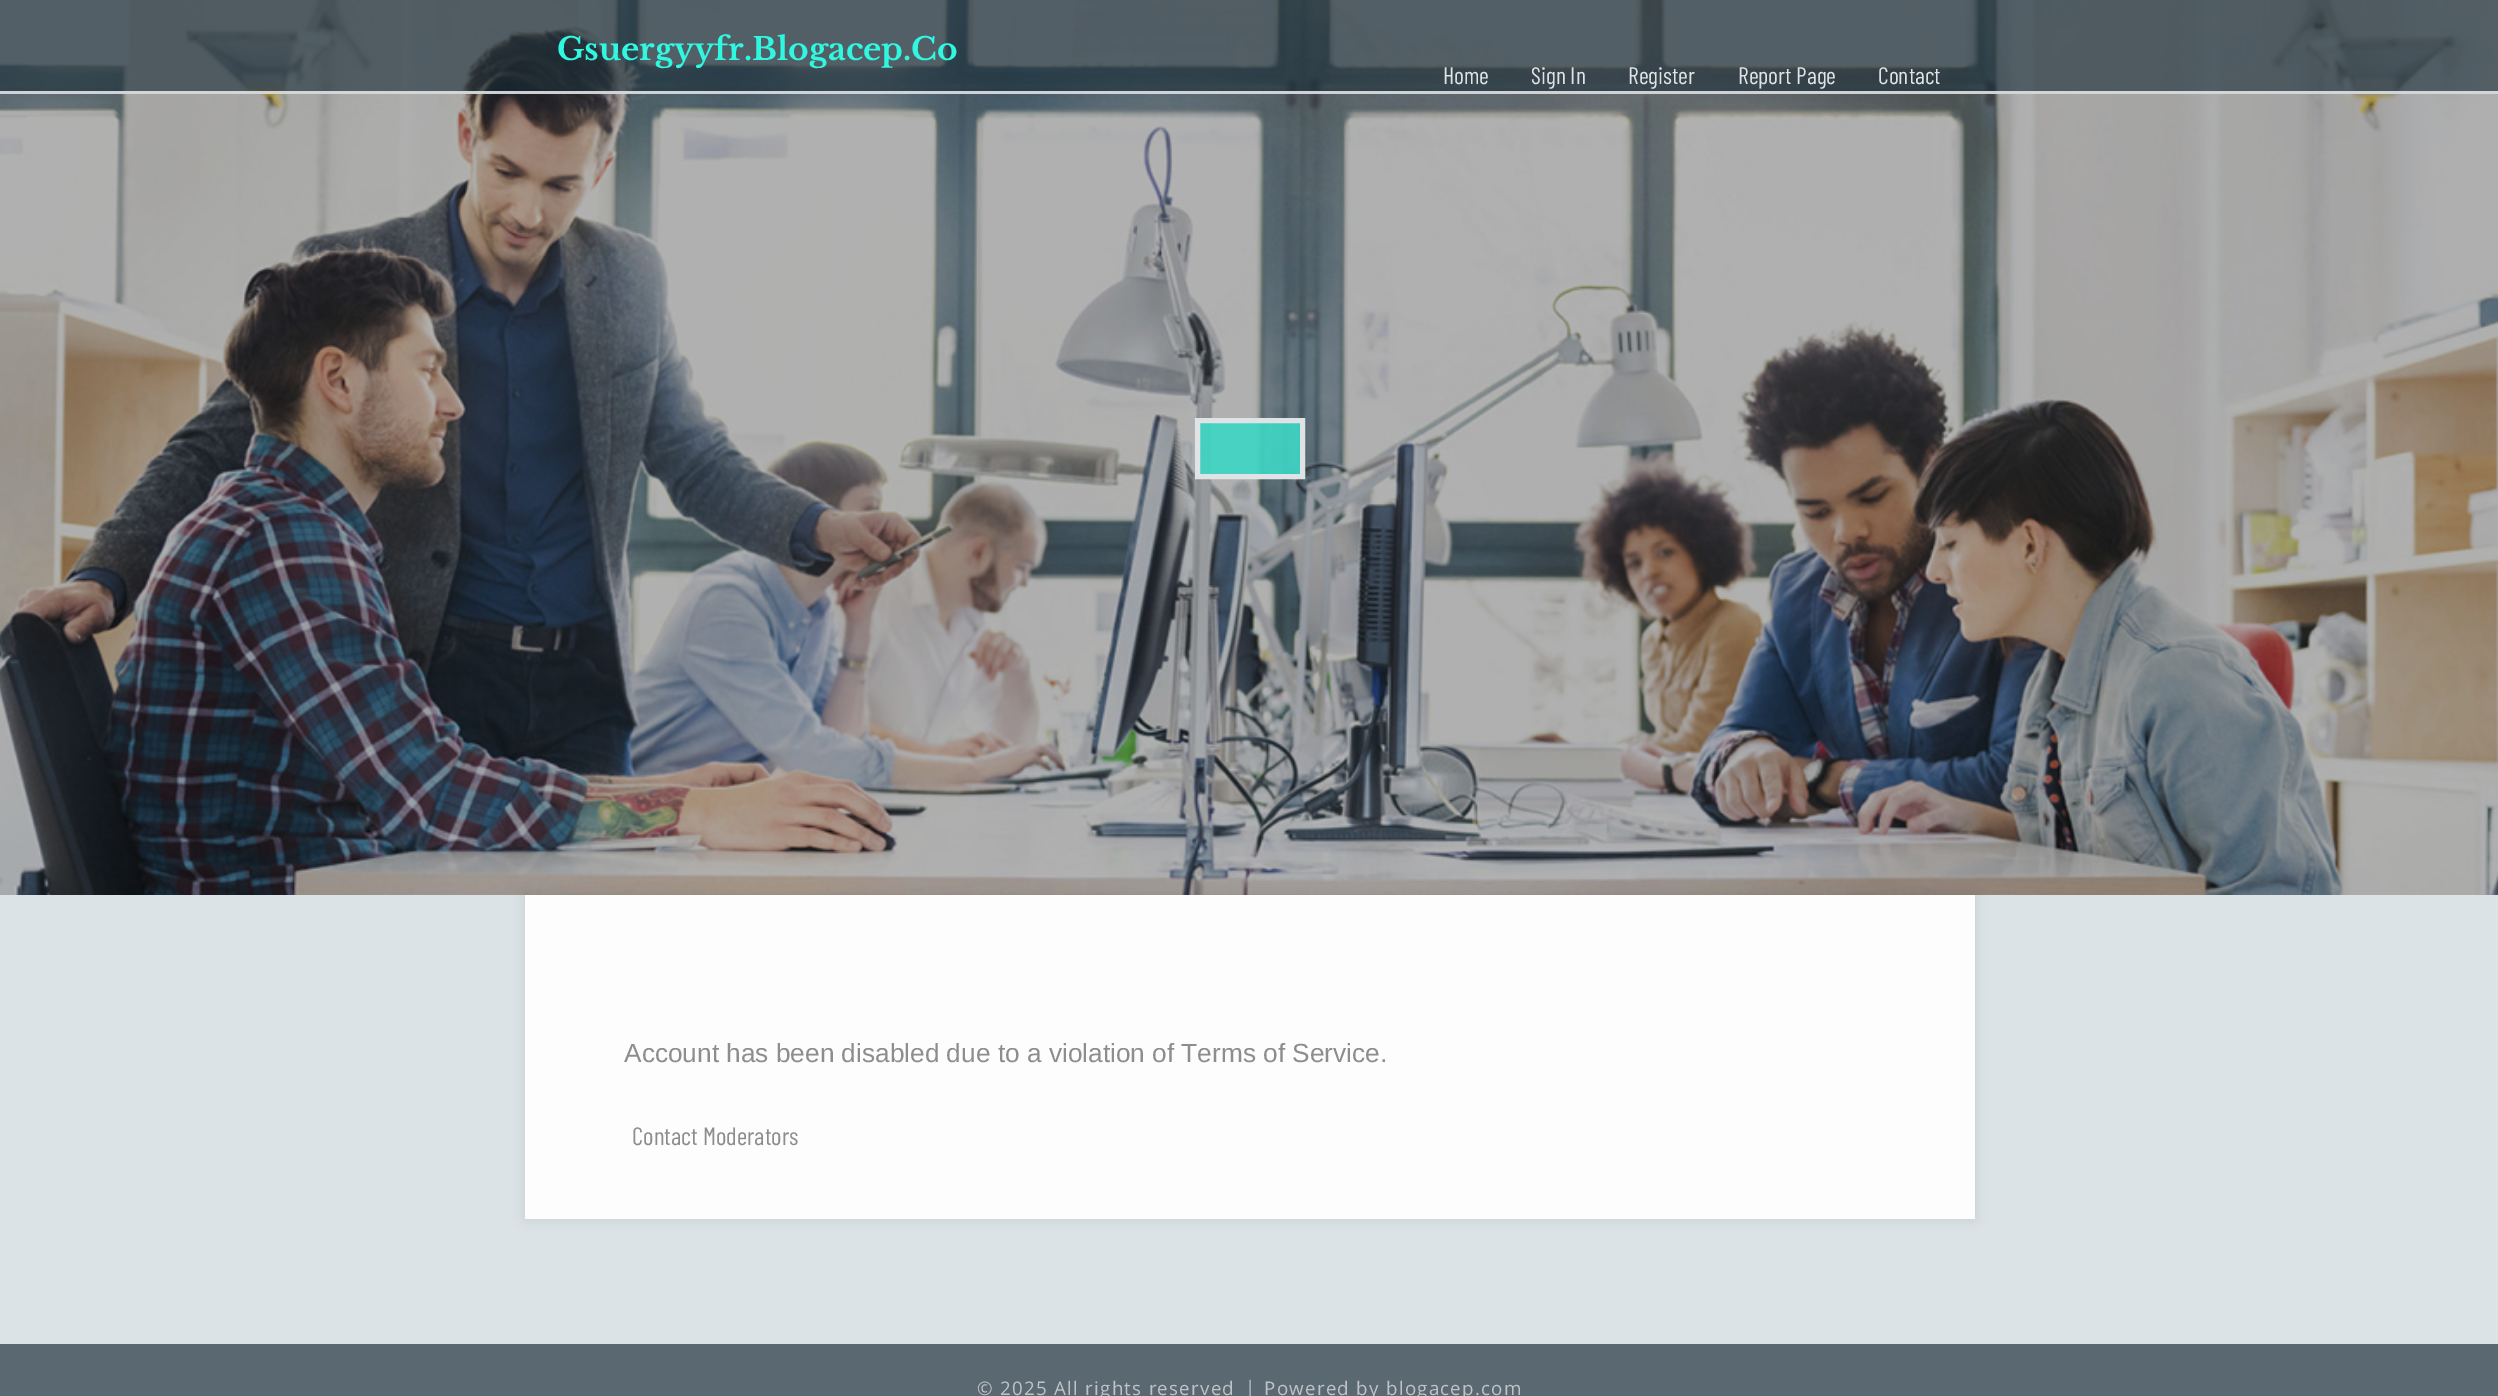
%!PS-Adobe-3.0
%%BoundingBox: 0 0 2498 1396
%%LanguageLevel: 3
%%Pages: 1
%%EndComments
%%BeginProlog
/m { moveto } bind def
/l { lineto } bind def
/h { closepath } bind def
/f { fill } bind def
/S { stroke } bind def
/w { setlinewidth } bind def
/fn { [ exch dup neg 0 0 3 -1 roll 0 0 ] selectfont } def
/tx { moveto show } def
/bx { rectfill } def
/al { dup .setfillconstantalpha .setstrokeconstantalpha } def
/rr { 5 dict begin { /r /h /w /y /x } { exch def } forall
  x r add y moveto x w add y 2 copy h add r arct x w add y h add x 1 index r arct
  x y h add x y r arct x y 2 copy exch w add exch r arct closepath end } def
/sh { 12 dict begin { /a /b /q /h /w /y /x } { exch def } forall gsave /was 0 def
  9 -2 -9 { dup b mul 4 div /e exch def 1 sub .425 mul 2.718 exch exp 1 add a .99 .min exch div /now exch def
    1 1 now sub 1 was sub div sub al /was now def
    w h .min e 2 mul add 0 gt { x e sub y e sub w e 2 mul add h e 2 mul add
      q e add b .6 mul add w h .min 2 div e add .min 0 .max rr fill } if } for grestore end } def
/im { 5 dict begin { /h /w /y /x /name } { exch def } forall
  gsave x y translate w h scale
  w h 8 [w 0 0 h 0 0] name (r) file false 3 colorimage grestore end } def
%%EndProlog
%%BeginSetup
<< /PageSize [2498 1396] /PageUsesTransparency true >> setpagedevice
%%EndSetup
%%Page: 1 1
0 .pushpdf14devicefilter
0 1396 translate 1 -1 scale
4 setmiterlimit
0.863 0.89 0.906 setrgbcolor
0 0 2498 1396 bx
(image0.raw) 0 0 2498 895 im
0.6 al
0.082 0.161 0.204 setrgbcolor
0 0 2498 94 bx
0.9 al
0.875 0.89 0.902 setrgbcolor
0 91 2498 3 bx
/LibreBaskerville-Bold 31.25 fn
1 al
0.184 0.969 0.878 setrgbcolor
(Gsuergyyfr.Blogacep.Co) 557 60 tx
/BarlowCondensed-Regular 23.75 fn
0.875 0.89 0.902 setrgbcolor
(Home) 1443 84 tx
(Sign In) 1531 84 tx
(Register) 1628 84 tx
(Report Page) 1738 84 tx
(Contact) 1878 84 tx
0.9 al
0.239 0.839 0.769 setrgbcolor
1197.5 420.5 m 1302.5 420.5 l 1302.5 476.5 l 1197.5 476.5 l h f
1 al
0.875 0.89 0.902 setrgbcolor
5 w
1197.5 420.5 m 1302.5 420.5 l 1302.5 476.5 l 1197.5 476.5 l h S
0 setgray
525 895 1450 324 0 6 0.1 sh
0.992 setgray
525 895 1450 324 bx
/LiberationSans-Regular 26.25 fn
0.553 setgray
(Account has been disabled due to a violation of Terms of Service.) 624 1062 tx
/BarlowCondensed-Regular 25 fn
(Contact Moderators) 632 1145 tx
0.353 0.408 0.447 setrgbcolor
0 1344 2498 52 bx
/OpenSans-Regular 18.75 fn
0.741 0.765 0.78 setrgbcolor
977 1395 m 1.25 0 (© 2025 All rights reserved) ashow
1245 1394 m 1.25 0 (|) ashow
1264 1395 m 1.25 0 (Powered by blogacep.com) ashow
.poppdf14devicefilter showpage
%%EOF
